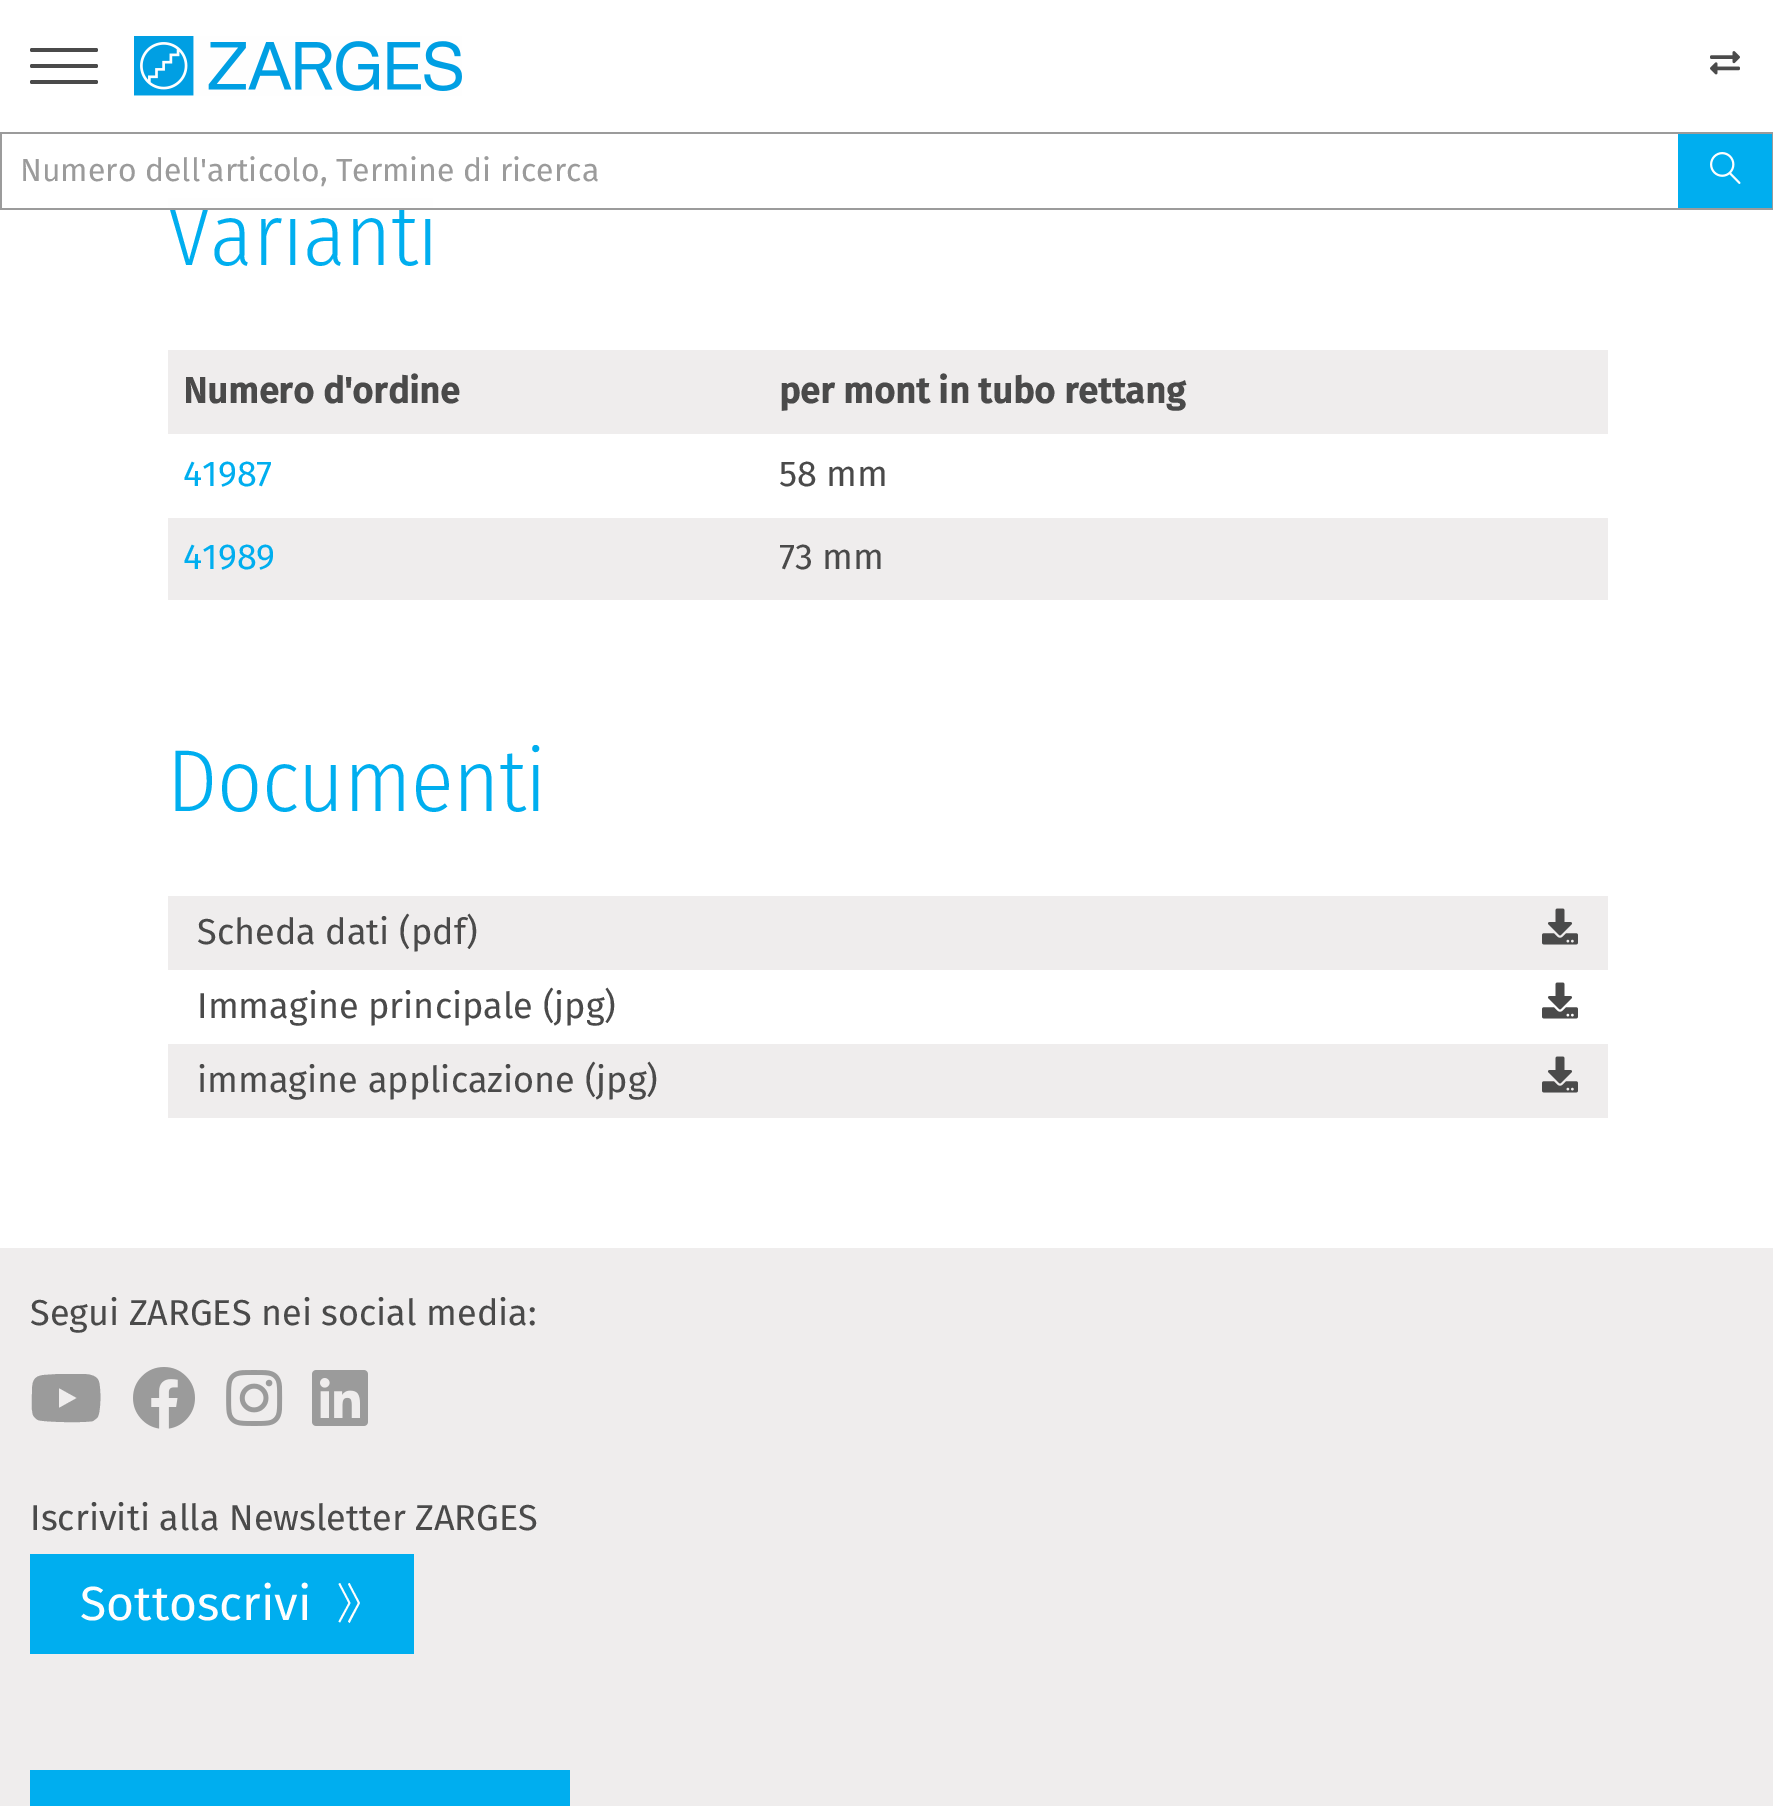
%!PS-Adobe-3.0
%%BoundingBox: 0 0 1773 1806
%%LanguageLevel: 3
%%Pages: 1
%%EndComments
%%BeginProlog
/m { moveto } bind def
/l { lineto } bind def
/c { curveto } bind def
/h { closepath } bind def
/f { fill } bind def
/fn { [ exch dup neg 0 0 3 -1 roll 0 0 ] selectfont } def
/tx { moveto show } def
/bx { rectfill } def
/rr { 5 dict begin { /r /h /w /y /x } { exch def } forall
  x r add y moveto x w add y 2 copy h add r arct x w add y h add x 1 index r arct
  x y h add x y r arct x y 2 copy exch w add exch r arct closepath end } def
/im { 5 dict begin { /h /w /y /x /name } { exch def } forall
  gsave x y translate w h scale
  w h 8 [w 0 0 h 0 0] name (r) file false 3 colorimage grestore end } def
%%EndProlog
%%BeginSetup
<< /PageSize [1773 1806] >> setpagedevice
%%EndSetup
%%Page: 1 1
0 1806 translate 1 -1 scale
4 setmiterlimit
1 setgray
0 0 1773 1806 bx
/FiraSansCondensed-Light 88 fn
0 0.682 0.937 setrgbcolor
167 265 m -0.5 0 (Varianti) ashow
0.996 setgray
168 198 265 10 bx
0.29 setgray
30 48 68 4 2 rr f
30 64 68 4 2 rr f
30 80 68 4 2 rr f
(image0.raw) 134 36 328 60 im
(image1.raw) 1710 51 30 24 im
0.608 setgray
0 132 1773 2 bx
0 208 1678 2 bx
0 132 2 78 bx
/FiraSans-Regular 32 fn
(Numero dell'articolo, Termine di ricerca) 20 181 tx
1772 132 1 78 bx
1678 208 95 2 bx
0 0.682 0.937 setrgbcolor
1678 134 94 74 bx
(image2.raw) 1710 152 31 32 im
0.937 0.929 0.929 setrgbcolor
168 350 1440 84 bx
/FiraSans-Bold 36 fn
0.29 setgray
(Numero d'ordine) 183 403 tx
(per mont in tubo rettang) 779 403 tx
/FiraSans-Regular 36 fn
0 0.682 0.937 setrgbcolor
(41987) 183 486 tx
0.29 setgray
(58 mm) 779 486 tx
0.937 0.929 0.929 setrgbcolor
168 518 1440 82 bx
0 0.682 0.937 setrgbcolor
(41989) 183 569 tx
0.29 setgray
(73 mm) 779 569 tx
/FiraSansCondensed-Light 88 fn
0 0.682 0.937 setrgbcolor
167 811 m -0.5 0 (Documenti) ashow
0.937 0.929 0.929 setrgbcolor
168 896 1440 74 bx
/FiraSans-Regular 36 fn
0.29 setgray
(Scheda dati \(pdf\)) 197 944 tx
(image3.raw) 1542 908 36 37 im
(Immagine principale \(jpg\)) 197 1018 tx
(image4.raw) 1542 982 36 37 im
0.937 0.929 0.929 setrgbcolor
168 1044 1440 74 bx
0.29 setgray
(immagine applicazione \(jpg\)) 197 1092 tx
(image3.raw) 1542 1056 36 37 im
0.937 0.929 0.929 setrgbcolor
0 1248 1773 558 bx
0.29 setgray
(Segui ZARGES nei social media:) 30 1325 tx
0.608 setgray
99 1382 m 101 1389 101 1414 97 1418 c 93 1421 l 84 1423 43 1422 38 1420 c 36 1419 34 1417 33 1415 c 31 1408 32 1400 32 1393 c 32 1382 33 1376 44 1375 c 59 1374 l 80 1374 l 86 1374 97 1374 99 1382 c h 59 1408 m 77 1398 l 59 1388 l h f
(image5.raw) 133 1367 62 62 im
(image6.raw) 226 1370 57 56 im
(image7.raw) 312 1370 56 56 im
0.29 setgray
(Iscriviti alla Newsletter ZARGES) 30 1530 tx
0 0.682 0.937 setrgbcolor
30 1554 384 100 bx
/FiraSans-Regular 48 fn
0.996 setgray
(Sottoscrivi) 80 1620 tx
349.5 1583 m 348 1584 l 358 1603 l 348 1621.5 l 349.5 1623 l 360 1603 l h 340 1583 m 338.5 1584 l 348.5 1603 l 338.5 1621.5 l 340 1622.5 l 350.5 1603 l h f
0 0.682 0.937 setrgbcolor
30 1770 540 36 bx
showpage
%%EOF
